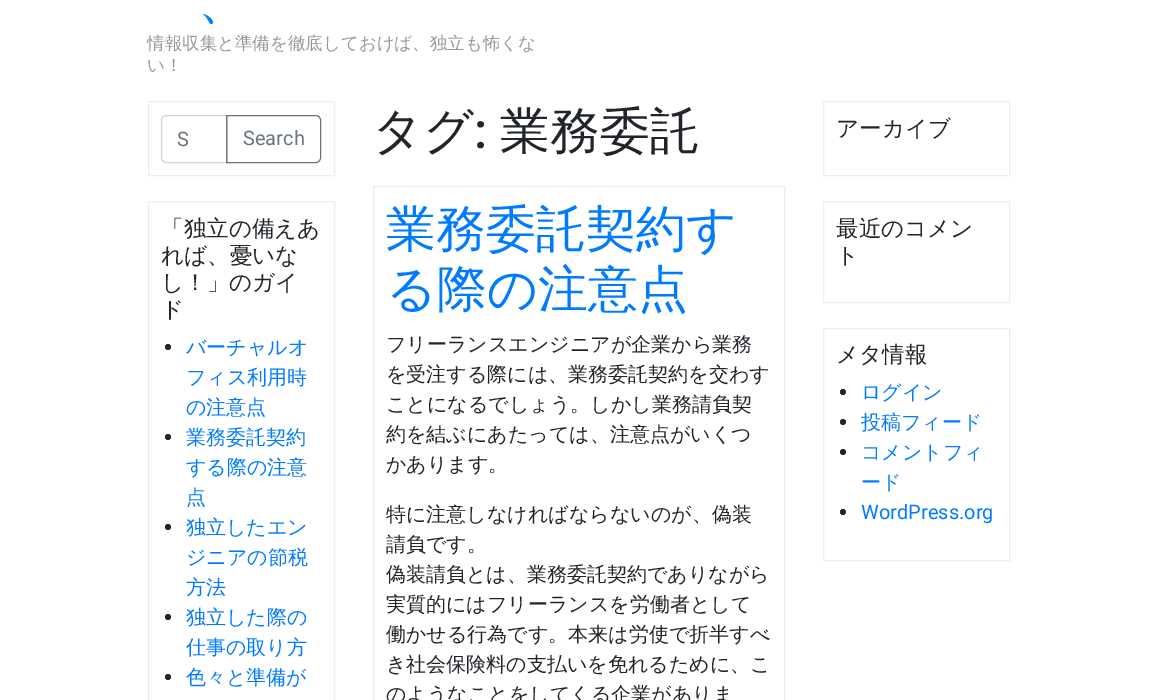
%!PS-Adobe-3.0
%%BoundingBox: 0 0 1156 700
%%LanguageLevel: 3
%%Pages: 1
%%EndComments
%%BeginProlog
/m { moveto } bind def
/l { lineto } bind def
/c { curveto } bind def
/h { closepath } bind def
/f { fill } bind def
/S { stroke } bind def
/fn { [ exch dup neg 0 0 3 -1 roll 0 0 ] selectfont } def
/tx { moveto show } def
/bx { rectfill } def
/ci { newpath 0 360 arc closepath } def
%%EndProlog
%%BeginSetup
<< /PageSize [1156 700] >> setpagedevice
%%EndSetup
%%Page: 1 1
0 700 translate 1 -1 scale
4 setmiterlimit
1 setgray
0 0 1156 700 bx
/WenQuanYiZenHei-Medium 50 fn
0 0.482 1 setrgbcolor
(、) 198 18 tx
/WenQuanYiZenHei-Medium 17.5 fn
0.6 setgray
(情報収集と準備を徹底しておけば、独立も怖くな) 147 49 tx
(い！) 147 71 tx
0.933 setgray
148.5 101.5 186 74 rectstroke
0.808 0.831 0.855 setrgbcolor
166 115.5 m 227.5 115.5 l 227.5 162.5 l 166 162.5 l 163.5 162.5 161.5 160.5 161.5 158 c 161.5 120 l 161.5 117.5 163.5 115.5 166 115.5 c h S
/Roboto-Regular 20 fn
0.424 0.459 0.49 setrgbcolor
(S) 177 146 tx
226.5 115.5 m 316 115.5 l 318.5 115.5 320.5 117.5 320.5 120 c 320.5 158 l 320.5 160.5 318.5 162.5 316 162.5 c 226.5 162.5 l h S
(Search) 243 145 tx
0.933 setgray
148.5 201.5 186 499 rectstroke
/WenQuanYiZenHei-Medium 22.5 fn
0.129 0.145 0.161 setrgbcolor
(「独立の備えあ) 161 236 tx
(れば、憂いな) 161 263 tx
(し！」のガイ) 161 290 tx
(ド) 161 317 tx
168 347 3 ci f
/WenQuanYiZenHei-Medium 20 fn
0 0.482 1 setrgbcolor
(バーチャルオ) 186 354 tx
(フィス利用時) 186 384 tx
(の注意点) 186 414 tx
0.129 0.145 0.161 setrgbcolor
168 437 3 ci f
0 0.482 1 setrgbcolor
(業務委託契約) 186 444 tx
(する際の注意) 186 474 tx
(点) 186 504 tx
0.129 0.145 0.161 setrgbcolor
168 527 3 ci f
0 0.482 1 setrgbcolor
(独立したエン) 186 534 tx
(ジニアの節税) 186 564 tx
(方法) 186 594 tx
0.129 0.145 0.161 setrgbcolor
168 617 3 ci f
0 0.482 1 setrgbcolor
(独立した際の) 186 624 tx
(仕事の取り方) 186 654 tx
0.129 0.145 0.161 setrgbcolor
168 677 3 ci f
0 0.482 1 setrgbcolor
(色々と準備が) 186 684 tx
/WenQuanYiZenHei-Medium 50 fn
0.129 0.145 0.161 setrgbcolor
(タグ) 372 148 tx
/Roboto-Medium 50 fn
(:) 474 148 tx
/WenQuanYiZenHei-Medium 50 fn
(業務委託) 500 148 tx
0.933 setgray
373.5 186.5 411 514 rectstroke
0 0.482 1 setrgbcolor
(業務委託契約す) 386 246 tx
(る際の注意点) 386 306 tx
/WenQuanYiZenHei-Medium 20 fn
0.129 0.145 0.161 setrgbcolor
(フリーランスエンジニアが企業から業務) 386 351 tx
(を受注する際には、業務委託契約を交わす) 386 381 tx
(ことになるでしょう。しかし業務請負契) 386 411 tx
(約を結ぶにあたっては、注意点がいくつ) 386 441 tx
(かあります。) 386 471 tx
(特に注意しなければならないのが、偽装) 386 521 tx
(請負です。) 386 551 tx
(偽装請負とは、業務委託契約でありながら) 386 581 tx
(実質的にはフリーランスを労働者として) 386 611 tx
(働かせる行為です。本来は労使で折半すべ) 386 641 tx
(き社会保険料の支払いを免れるために、こ) 386 671 tx
(のようなことをしてくる企業がありま) 386 701 tx
0.933 setgray
823.5 101.5 186 74 rectstroke
/WenQuanYiZenHei-Medium 22.5 fn
0.129 0.145 0.161 setrgbcolor
(アーカイブ) 836 136 tx
0.933 setgray
823.5 201.5 186 101 rectstroke
0.129 0.145 0.161 setrgbcolor
(最近のコメン) 836 236 tx
(ト) 836 263 tx
0.933 setgray
823.5 328.5 186 232 rectstroke
0.129 0.145 0.161 setrgbcolor
(メタ情報) 836 362 tx
843 392 3 ci f
/WenQuanYiZenHei-Medium 20 fn
0 0.482 1 setrgbcolor
(ログイン) 861 399 tx
0.129 0.145 0.161 setrgbcolor
843 422 3 ci f
0 0.482 1 setrgbcolor
(投稿フィード) 861 429 tx
0.129 0.145 0.161 setrgbcolor
843 452 3 ci f
0 0.482 1 setrgbcolor
(コメントフィ) 861 459 tx
(ード) 861 489 tx
0.129 0.145 0.161 setrgbcolor
843 512 3 ci f
/Roboto-Regular 20 fn
0 0.482 1 setrgbcolor
(WordPress.org) 861 519 tx
showpage
%%EOF
